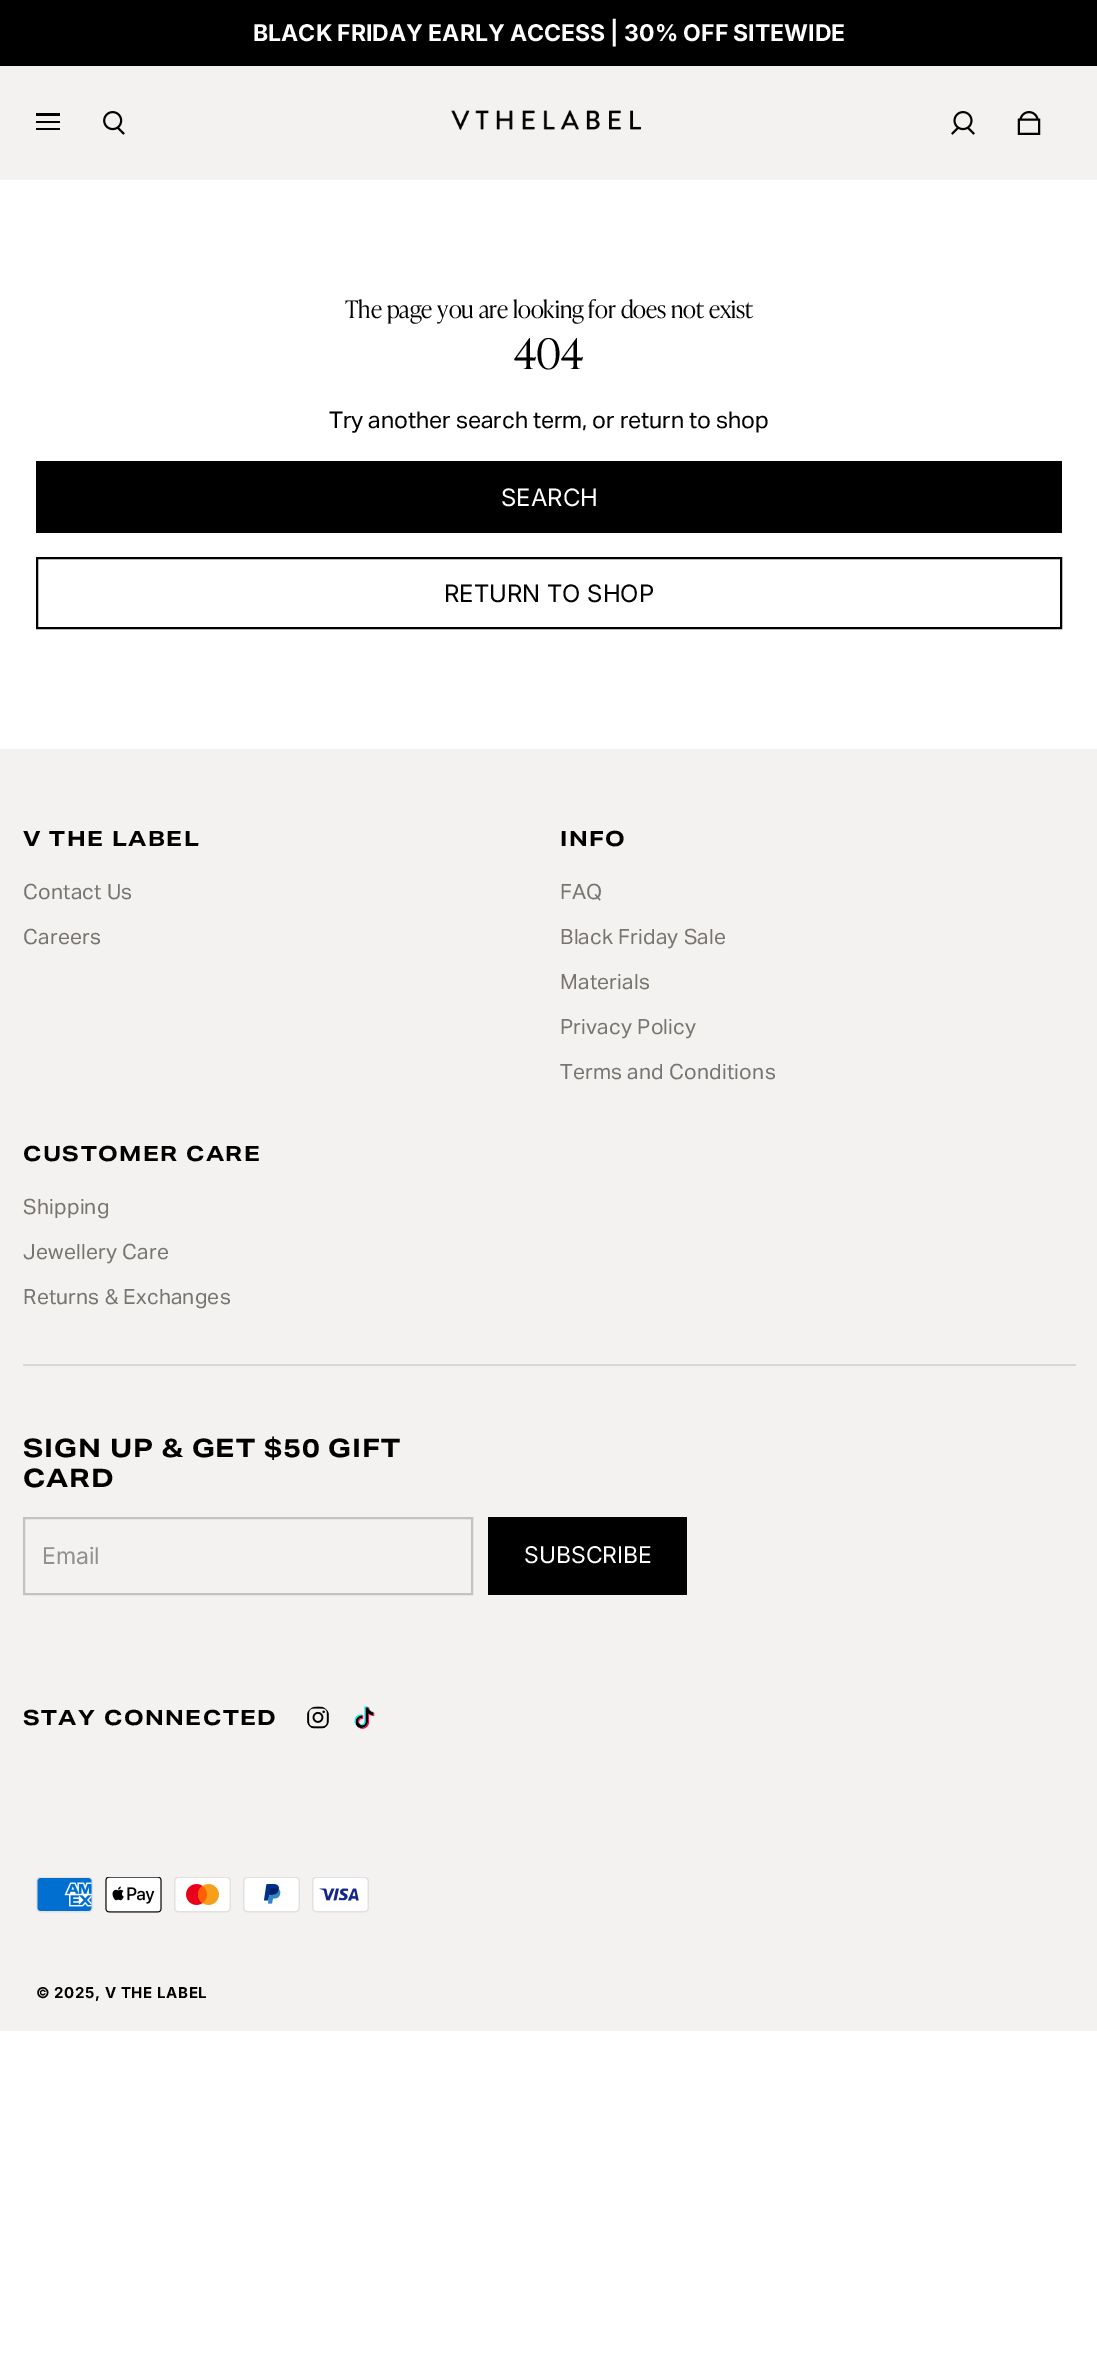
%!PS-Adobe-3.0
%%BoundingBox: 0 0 1097 2380
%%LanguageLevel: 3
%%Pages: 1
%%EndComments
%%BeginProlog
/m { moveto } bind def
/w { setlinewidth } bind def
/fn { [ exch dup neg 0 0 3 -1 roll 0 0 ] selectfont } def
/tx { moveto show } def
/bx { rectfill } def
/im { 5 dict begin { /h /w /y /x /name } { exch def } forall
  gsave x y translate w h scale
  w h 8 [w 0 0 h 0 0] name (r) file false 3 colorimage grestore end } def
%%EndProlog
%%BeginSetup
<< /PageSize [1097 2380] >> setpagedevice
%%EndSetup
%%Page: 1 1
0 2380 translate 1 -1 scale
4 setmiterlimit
1 setgray
0 0 1097 2380 bx
0 setgray
0 0 1097 66 bx
/Inter-Bold 23.05 fn
1 setgray
253 41 m -0.25 0 32 (BLACK FRIDAY EARLY ACCESS | 30% OFF SITEWIDE) widthshow
0.957 0.949 0.941 setrgbcolor
0 66 1097 114 bx
0 setgray
36 113 24 3 bx
36 121 24 2 bx
36 128 24 2 bx
(image0.raw) 103 111 22 24 im
(image1.raw) 451 110 191 20 im
(image2.raw) 951 111 24 24 im
(image3.raw) 1017 111 24 24 im
/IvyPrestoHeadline-Light 24 fn
(The page you are looking for does not exist) 345 318 tx
/IvyPrestoHeadline-Light 42 fn
(404) 514 369 tx
/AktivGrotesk-Regular 23.05 fn
(Try another search term, or return to shop) 329 428 tx
36 461 1026 72 bx
/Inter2-Regular 24 fn
1 setgray
(SEARCH) 501 506 tx
0 setgray
2 w
37 558 1024 70 rectstroke
(RETURN TO SHOP) 444 602 tx
0.957 0.949 0.941 setrgbcolor
0 749 1097 1282 bx
0.843 setgray
23 1364 1053 2 bx
/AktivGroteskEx-Bold 21 fn
0 setgray
23 846 m 1.5 0 (V THE LABEL) ashow
/AktivGrotesk-Regular 21 fn
0.471 0.459 0.439 setrgbcolor
23 899 m 0.25 0 (Contact Us) ashow
23 944 m 0.25 0 (Careers) ashow
/AktivGroteskEx-Bold 21 fn
0 setgray
560 846 m 1.5 0 (INFO) ashow
/AktivGrotesk-Regular 21 fn
0.471 0.459 0.439 setrgbcolor
560 899 m 0.25 0 (FAQ) ashow
560 944 m 0.25 0 (Black Friday Sale) ashow
560 989 m 0.25 0 (Materials) ashow
560 1034 m 0.25 0 (Privacy Policy) ashow
560 1079 m 0.25 0 (Terms and Conditions) ashow
/AktivGroteskEx-Bold 21 fn
0 setgray
23 1161 m 1.5 0 (CUSTOMER CARE) ashow
/AktivGrotesk-Regular 21 fn
0.471 0.459 0.439 setrgbcolor
23 1214 m 0.25 0 (Shipping) ashow
23 1259 m 0.25 0 (Jewellery Care) ashow
23 1304 m 0.25 0 (Returns & Exchanges) ashow
/AktivGroteskEx-Bold 25.5 fn
0 setgray
23 1457 m 1 0 (SIGN UP & GET $50 GIFT) ashow
23 1487 m 1 0 (CARD) ashow
0.765 0.761 0.753 setrgbcolor
24 1518 448 76 rectstroke
/Inter-Regular 23.05 fn
0.573 0.569 0.565 setrgbcolor
(Email) 42 1564 tx
0 setgray
488 1517 199 78 bx
1 setgray
(SUBSCRIBE) 524 1563 tx
/AktivGroteskEx-Bold 21 fn
0 setgray
23 1725 m 1.5 0 (STAY CONNECTED) ashow
(image4.raw) 307 1706 22 23 im
(image5.raw) 354 1706 21 23 im
(image6.raw) 36 1877 57 36 im
(image7.raw) 105 1877 57 36 im
(image8.raw) 174 1877 57 36 im
(image9.raw) 243 1877 57 36 im
(image10.raw) 312 1877 57 36 im
/Inter-Bold 15 fn
36 1998 m 0.6 0 (© 2025, V THE LABEL) ashow
showpage
%%EOF
